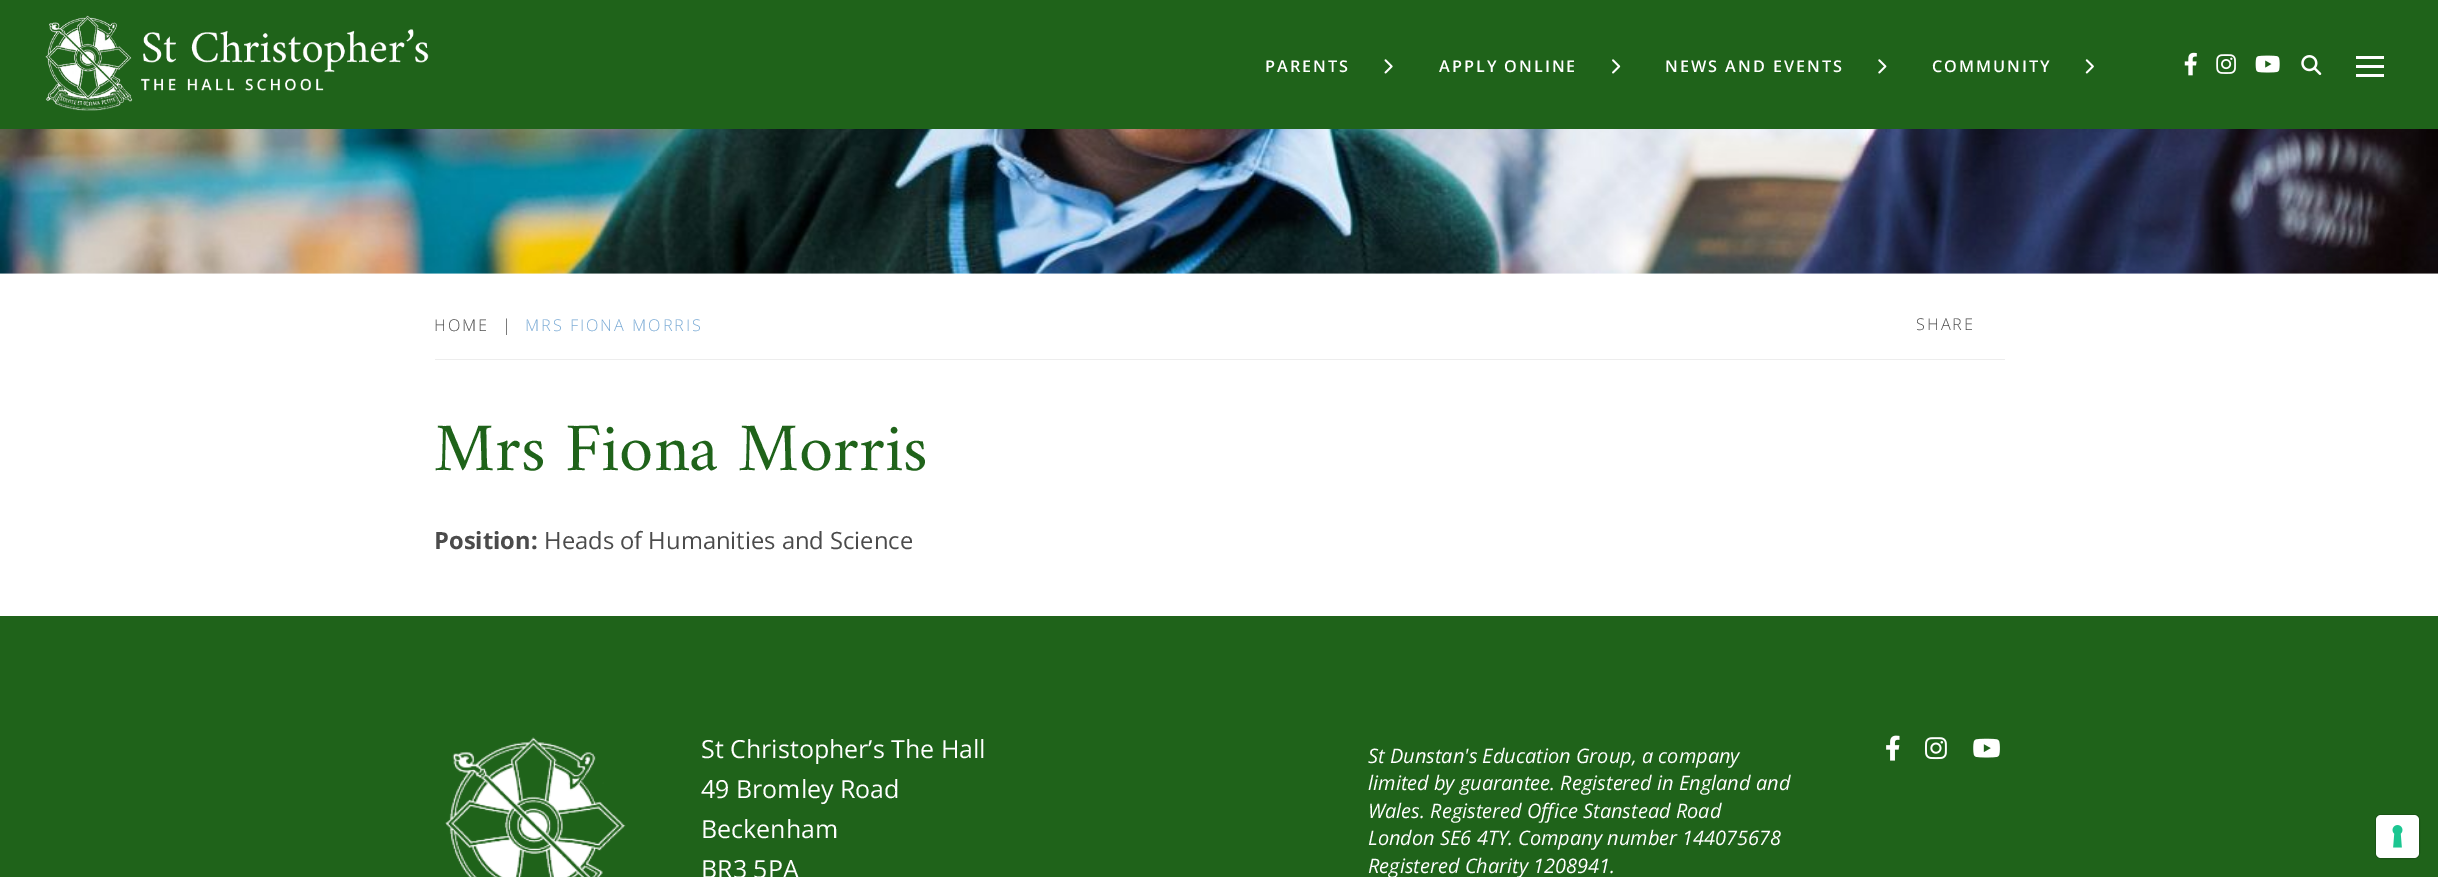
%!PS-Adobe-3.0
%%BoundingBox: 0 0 2438 877
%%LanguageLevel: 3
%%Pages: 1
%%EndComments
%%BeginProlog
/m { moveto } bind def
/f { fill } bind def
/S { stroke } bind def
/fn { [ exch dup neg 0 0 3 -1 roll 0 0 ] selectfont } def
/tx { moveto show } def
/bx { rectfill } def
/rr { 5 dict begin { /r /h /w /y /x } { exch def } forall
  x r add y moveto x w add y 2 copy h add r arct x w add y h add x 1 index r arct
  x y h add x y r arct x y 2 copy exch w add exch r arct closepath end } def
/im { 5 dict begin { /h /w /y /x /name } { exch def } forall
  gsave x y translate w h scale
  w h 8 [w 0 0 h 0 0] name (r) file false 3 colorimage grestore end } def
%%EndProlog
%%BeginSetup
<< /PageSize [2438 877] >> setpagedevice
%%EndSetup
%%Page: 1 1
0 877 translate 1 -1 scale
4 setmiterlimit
1 setgray
0 0 2438 877 bx
0.122 0.388 0.102 setrgbcolor
0 0 2438 129 bx
(image0.raw) 45 15 384 96 im
/OpenSans-SemiBold 16.25 fn
1 setgray
1265 72 m 2 0 (PARENTS) ashow
(image1.raw) 1384 59 9 15 im
1439 72 m 2 0 (APPLY ONLINE) ashow
(image2.raw) 1612 59 9 15 im
1665 72 m 2 0 (NEWS AND EVENTS) ashow
(image3.raw) 1878 59 9 15 im
1932 72 m 2 0 (COMMUNITY) ashow
(image4.raw) 2085 59 9 15 im
(image5.raw) 2184 52 13 24 im
(image6.raw) 2216 54 20 20 im
(image7.raw) 2255 55 25 18 im
(image8.raw) 2301 55 21 20 im
2356 56 28 3 bx
2356 65 28 3 bx
2356 74 28 3 bx
(image9.raw) 0 129 2438 145 im
0.929 setgray
435 359 1570 1 bx
/OpenSans-Light 16.25 fn
0.294 setgray
434 331 m 2 0 (HOME) ashow
502 331 m 2 0 (|) ashow
0.475 0.667 0.835 setrgbcolor
525 331 m 2 0 (MRS FIONA MORRIS) ashow
0.294 setgray
1916 330 m 2 0 (SHARE) ashow
/Amiri-Regular 68.75 fn
0.122 0.388 0.102 setrgbcolor
(Mrs Fiona Morris) 434 470 tx
/OpenSans-Bold 23.75 fn
0.294 setgray
(Position:) 434 549 tx
/OpenSans-Regular 23.75 fn
(Heads of Humanities and Science) 544 549 tx
0.122 0.388 0.102 setrgbcolor
0 616 2438 261 bx
(image10.raw) 445 737 181 140 im
/OpenSans-Regular 25 fn
1 setgray
(St Christopher’s The Hall) 701 758 tx
(49 Bromley Road) 701 798 tx
(Beckenham) 701 838 tx
(BR3 5PA) 701 878 tx
/OpenSans-Italic 20 fn
(St Dunstan's Education Group, a company) 1368 763 tx
(limited by guarantee. Registered in England and) 1368 790 tx
(Wales. Registered Office Stanstead Road) 1368 818 tx
(London SE6 4TY. Company number 144075678) 1368 845 tx
(Registered Charity 1208941.) 1368 873 tx
(image11.raw) 1886 735 14 26 im
(image12.raw) 1925 737 22 23 im
(image13.raw) 1973 738 27 20 im
0.102 0.329 0.086 setrgbcolor
2375.5 814.5 44 44 5.5 rr S
1 setgray
2376 815 43 43 5 rr f
(image14.raw) 2392 825 11 23 im
showpage
%%EOF
